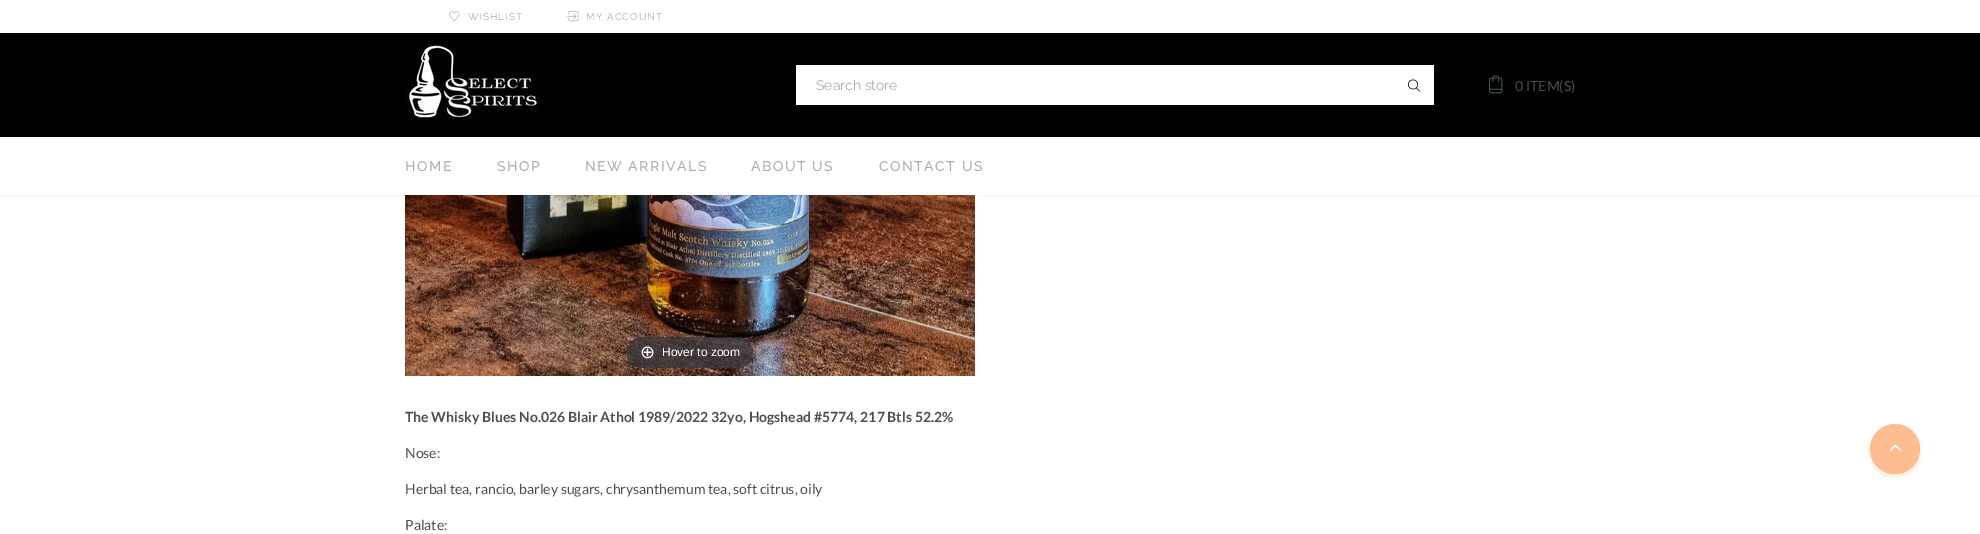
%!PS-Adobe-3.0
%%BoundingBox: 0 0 1980 534
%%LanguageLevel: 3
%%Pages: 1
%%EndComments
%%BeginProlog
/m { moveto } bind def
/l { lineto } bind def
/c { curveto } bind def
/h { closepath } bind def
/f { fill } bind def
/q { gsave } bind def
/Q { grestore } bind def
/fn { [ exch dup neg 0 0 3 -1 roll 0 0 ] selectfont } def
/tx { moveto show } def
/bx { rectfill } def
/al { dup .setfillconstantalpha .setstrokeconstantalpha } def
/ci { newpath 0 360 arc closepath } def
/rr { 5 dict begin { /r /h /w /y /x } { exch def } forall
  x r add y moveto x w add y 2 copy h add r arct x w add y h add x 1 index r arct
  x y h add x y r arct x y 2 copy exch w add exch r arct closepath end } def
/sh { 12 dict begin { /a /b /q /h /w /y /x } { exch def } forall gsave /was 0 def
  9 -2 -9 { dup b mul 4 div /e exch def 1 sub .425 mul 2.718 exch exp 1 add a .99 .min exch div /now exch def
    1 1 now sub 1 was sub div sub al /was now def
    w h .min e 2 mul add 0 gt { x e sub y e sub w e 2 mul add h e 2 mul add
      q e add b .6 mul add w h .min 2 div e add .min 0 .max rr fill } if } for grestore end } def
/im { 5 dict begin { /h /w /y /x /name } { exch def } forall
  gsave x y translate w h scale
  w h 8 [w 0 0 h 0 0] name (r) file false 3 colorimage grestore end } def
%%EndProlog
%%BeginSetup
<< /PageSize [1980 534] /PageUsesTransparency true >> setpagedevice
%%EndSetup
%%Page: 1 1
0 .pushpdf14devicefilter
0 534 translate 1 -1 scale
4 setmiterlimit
1 setgray
0 0 1980 534 bx
(image5.raw) 405 195 570 181 im
0 setgray
0 0 1980 195 0 1.5 0.1 sh
1 setgray
0 0 1980 195 bx
(image0.raw) 449 11 11 11 im
/Raleway-Regular 10 fn
0.675 setgray
468 20 m 1 0 (WISHLIST) ashow
(image1.raw) 567 11 12 11 im
586 20 m 1 0 (MY ACCOUNT) ashow
0 setgray
0 33 1980 104 bx
(image2.raw) 406 45 134 76 im
1 setgray
796 65 638 40 bx
/Raleway-Regular 14 fn
0.675 setgray
(Search store) 816 90 tx
(image3.raw) 1408 79 12 13 im
(image4.raw) 1489 75 14 19 im
/Lato-Regular 14 fn
0.282 0.318 0.329 setrgbcolor
(0 ITEM\(S\)) 1515 91 tx
/Raleway-Medium 14 fn
0.675 setgray
405 171 m 1.5 0 (HOME) ashow
497 171 m 1.5 0 (SHOP) ashow
585 171 m 1.5 0 (NEW ARRIVALS) ashow
751 171 m 1.5 0 (ABOUT US) ashow
879 171 m 1.5 0 (CONTACT US) ashow
0.7 al
0.192 0.2 0.239 setrgbcolor
627 337 126 31 15.5 rr f
/DejaVuSans-Regular 18 fn
1 al
1 setgray
(⊕) 640 358 tx
/LiberationSans-Regular 12 fn
(Hover to zoom) 662 356 tx
/Lato-Bold 14 fn
0.282 0.318 0.329 setrgbcolor
(The Whisky Blues No.026 Blair Athol 1989/2022 32yo, Hogshead #5774, 217 Btls 52.2%) 405 422 tx
/Lato-Regular 14 fn
(Nose:) 405 458 tx
(Herbal tea, rancio, barley sugars, chrysanthemum tea, soft citrus, oily) 405 494 tx
(Palate:) 405 530 tx
q
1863 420 m 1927 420 l 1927 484 l 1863 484 l h 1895 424 m 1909 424 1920 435 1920 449 c 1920 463 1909 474 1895 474 c 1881 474 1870 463 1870 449 c 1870 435 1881 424 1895 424 c h eoclip newpath
0.992 0.569 0.282 setrgbcolor
1870 427 50 50 25 2 0.2 sh
Q
0.6 al
0.992 0.569 0.282 setrgbcolor
1895 449 25 ci f
1 al
(image6.raw) 1890 444 11 7 im
.poppdf14devicefilter showpage
%%EOF
